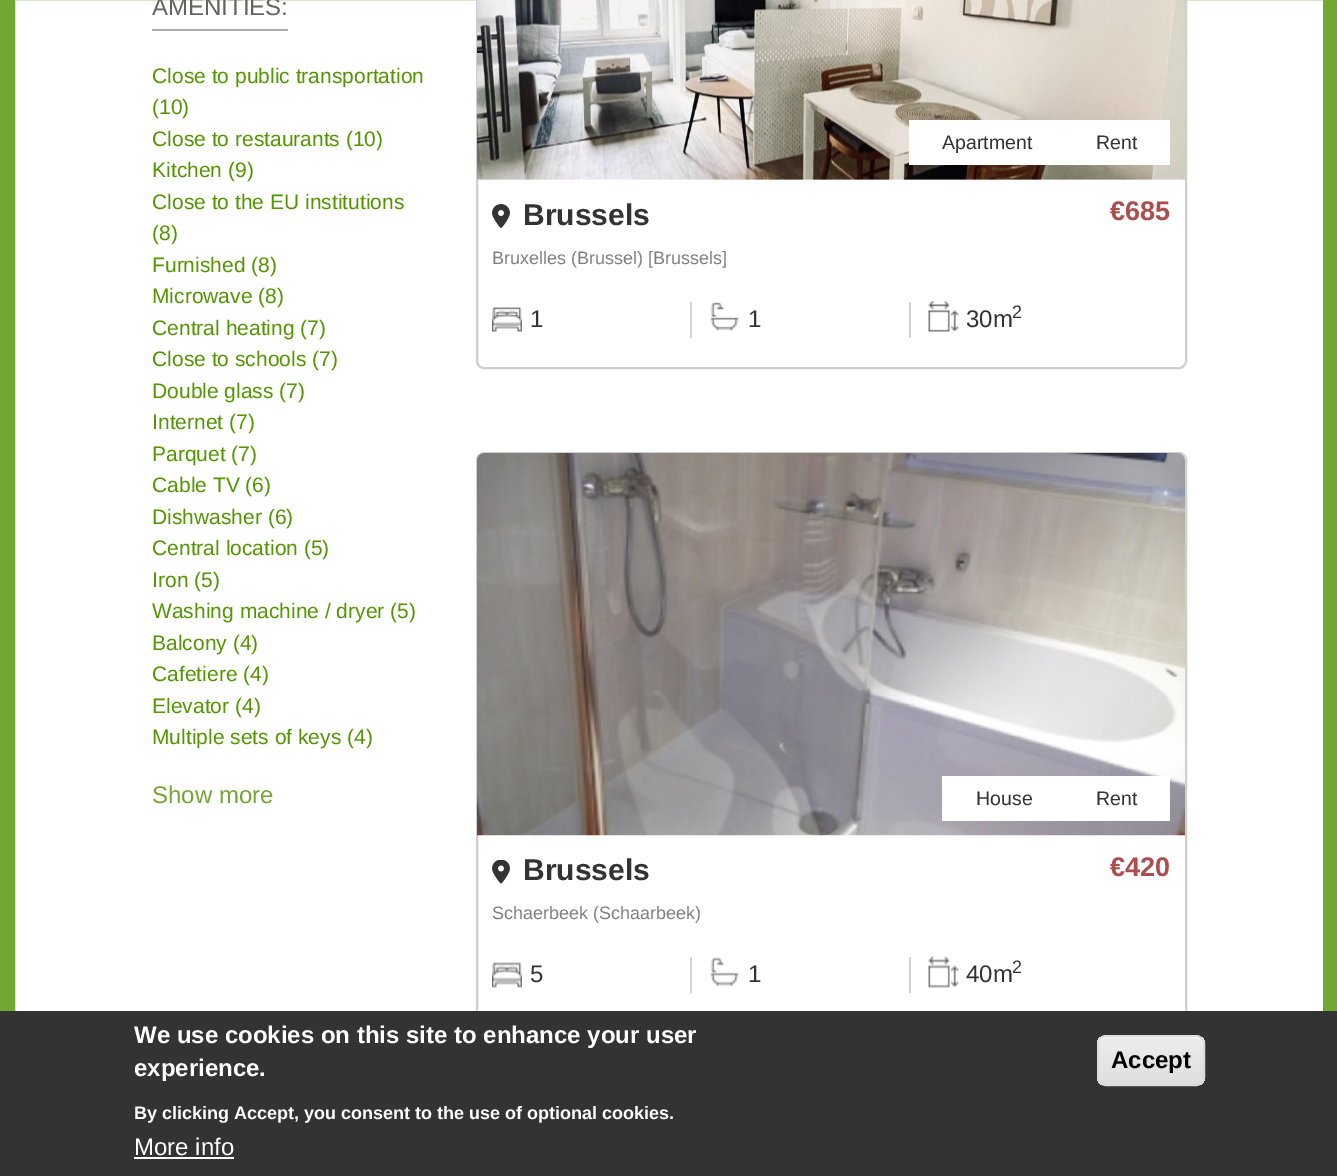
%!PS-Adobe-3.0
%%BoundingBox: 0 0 1337 1176
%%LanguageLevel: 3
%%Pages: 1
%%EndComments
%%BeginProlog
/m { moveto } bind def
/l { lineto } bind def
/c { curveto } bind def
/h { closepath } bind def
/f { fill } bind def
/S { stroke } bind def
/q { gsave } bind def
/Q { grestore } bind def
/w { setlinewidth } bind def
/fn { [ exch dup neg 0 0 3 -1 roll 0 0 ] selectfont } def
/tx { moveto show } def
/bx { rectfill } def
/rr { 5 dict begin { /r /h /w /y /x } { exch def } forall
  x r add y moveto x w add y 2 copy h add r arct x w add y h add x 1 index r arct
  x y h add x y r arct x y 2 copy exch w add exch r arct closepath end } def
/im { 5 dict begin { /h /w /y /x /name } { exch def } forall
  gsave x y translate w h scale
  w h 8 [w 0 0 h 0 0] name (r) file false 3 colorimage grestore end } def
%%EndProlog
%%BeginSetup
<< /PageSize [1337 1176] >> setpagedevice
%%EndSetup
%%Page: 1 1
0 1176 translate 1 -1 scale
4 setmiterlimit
1 setgray
0 0 1337 1176 bx
0.447 0.655 0.196 setrgbcolor
15 w
7.5 -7.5 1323 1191 rectstroke
0.675 setgray
152 29 136 2 bx
/LiberationSans-Regular 24 fn
0.388 setgray
(AMENITIES:) 152 15 tx
/LiberationSans-Regular 21 fn
0.322 0.588 0 setrgbcolor
(Close to public transportation) 152 83 tx
(\(10\)) 152 114 tx
(Close to restaurants \(10\)) 152 146 tx
(Kitchen \(9\)) 152 177 tx
(Close to the EU institutions) 152 209 tx
(\(8\)) 152 240 tx
(Furnished \(8\)) 152 272 tx
(Microwave \(8\)) 152 303 tx
(Central heating \(7\)) 152 335 tx
(Close to schools \(7\)) 152 366 tx
(Double glass \(7\)) 152 398 tx
(Internet \(7\)) 152 429 tx
(Parquet \(7\)) 152 461 tx
(Cable TV \(6\)) 152 492 tx
(Dishwasher \(6\)) 152 524 tx
(Central location \(5\)) 152 555 tx
(Iron \(5\)) 152 587 tx
(Washing machine / dryer \(5\)) 152 618 tx
(Balcony \(4\)) 152 650 tx
(Cafetiere \(4\)) 152 681 tx
(Elevator \(4\)) 152 713 tx
(Multiple sets of keys \(4\)) 152 744 tx
/LiberationSans-Regular 24 fn
0.447 0.655 0.196 setrgbcolor
(Show more) 152 803 tx
0.816 0.812 0.812 setrgbcolor
2 w
477 -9 709 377 7 rr S
(image0.raw) 477 0 708 180 im
1 setgray
909 120 261 45 bx
/LiberationSans-Regular 19.5 fn
0.2 setgray
(Apartment) 942 149 tx
(Rent) 1096 149 tx
(image1.raw) 492 204 18 24 im
/LiberationSans-Bold 30 fn
(Brussels) 523 225 tx
/LiberationSans-Bold 27 fn
0.682 0.302 0.302 setrgbcolor
(€685) 1110 220 tx
/LiberationSans-Regular 18 fn
0.502 setgray
(Bruxelles \(Brussel\) [Brussels]) 492 264 tx
(image2.raw) 492 307 30 25 im
/LiberationSans-Regular 24 fn
0.2 setgray
(1) 530 327 tx
0.827 setgray
690 302 2 36 bx
(image3.raw) 710 301 29 30 im
0.2 setgray
(1) 748 327 tx
0.827 setgray
909 302 2 36 bx
(image4.raw) 928 301 31 31 im
0.2 setgray
(30m) 966 327 tx
/LiberationSans-Regular 18 fn
(2) 1012 318 tx
0.816 0.812 0.812 setrgbcolor
477 453 709 571 7 rr S
(image5.raw) 477 453 708 383 im
1 setgray
942 776 228 45 bx
/LiberationSans-Regular 19.5 fn
0.2 setgray
(House) 976 805 tx
(Rent) 1096 805 tx
(image6.raw) 492 860 18 24 im
/LiberationSans-Bold 30 fn
(Brussels) 523 880 tx
/LiberationSans-Bold 27 fn
0.682 0.302 0.302 setrgbcolor
(€420) 1110 876 tx
/LiberationSans-Regular 18 fn
0.502 setgray
(Schaerbeek \(Schaarbeek\)) 492 919 tx
(image7.raw) 492 962 30 26 im
/LiberationSans-Regular 24 fn
0.2 setgray
(5) 530 982 tx
0.827 setgray
690 957 2 36 bx
(image8.raw) 710 957 29 30 im
0.2 setgray
(1) 748 982 tx
0.827 setgray
909 957 2 36 bx
(image9.raw) 928 956 31 32 im
0.2 setgray
(40m) 966 982 tx
/LiberationSans-Regular 18 fn
(2) 1012 973 tx
0 1011 1337 165 bx
/LiberationSans-Bold 24 fn
1 setgray
(We use cookies on this site to enhance your user) 134 1043 tx
(experience.) 134 1076 tx
/LiberationSans-Bold 18 fn
(By clicking Accept, you consent to the use of optional cookies.) 134 1119 tx
/LiberationSans-Regular 24 fn
(More info) 134 1155 tx
134 1157 100 2 bx
q
1097 1035 108 51 9 rr clip newpath
q 1097 1037 m 1205 1037 l 1205 1085 l 1097 1085 l h clip newpath
<< /ShadingType 2 /ColorSpace /DeviceRGB /Coords [1151 1037 1151 1085] /Extend [true true] /Function << /FunctionType 3 /Domain [0 1] /Functions [<< /FunctionType 2 /Domain [0 1] /C0 [0.929 0.929 0.929] /C1 [0.929 0.929 0.929] /N 1 >> << /FunctionType 2 /Domain [0 1] /C0 [0.929 0.929 0.929] /C1 [0.875 0.875 0.875] /N 1 >>] /Bounds [0.05] /Encode [0 1 0 1] >> >> shfill Q
Q
1106 1038 m 1196 1038 l 1200 1038 1203 1041 1203 1046 c 1203 1033 1188 1037 1180 1037 c 1121 1037 l 1113 1037 1098 1033 1098 1046 c 1098 1041 1101 1038 1106 1038 c h f
0.863 setgray
1098 1036 106 49 8 rr S
/LiberationSans-Bold 24 fn
0 setgray
(Accept) 1111 1068 tx
showpage
%%EOF
